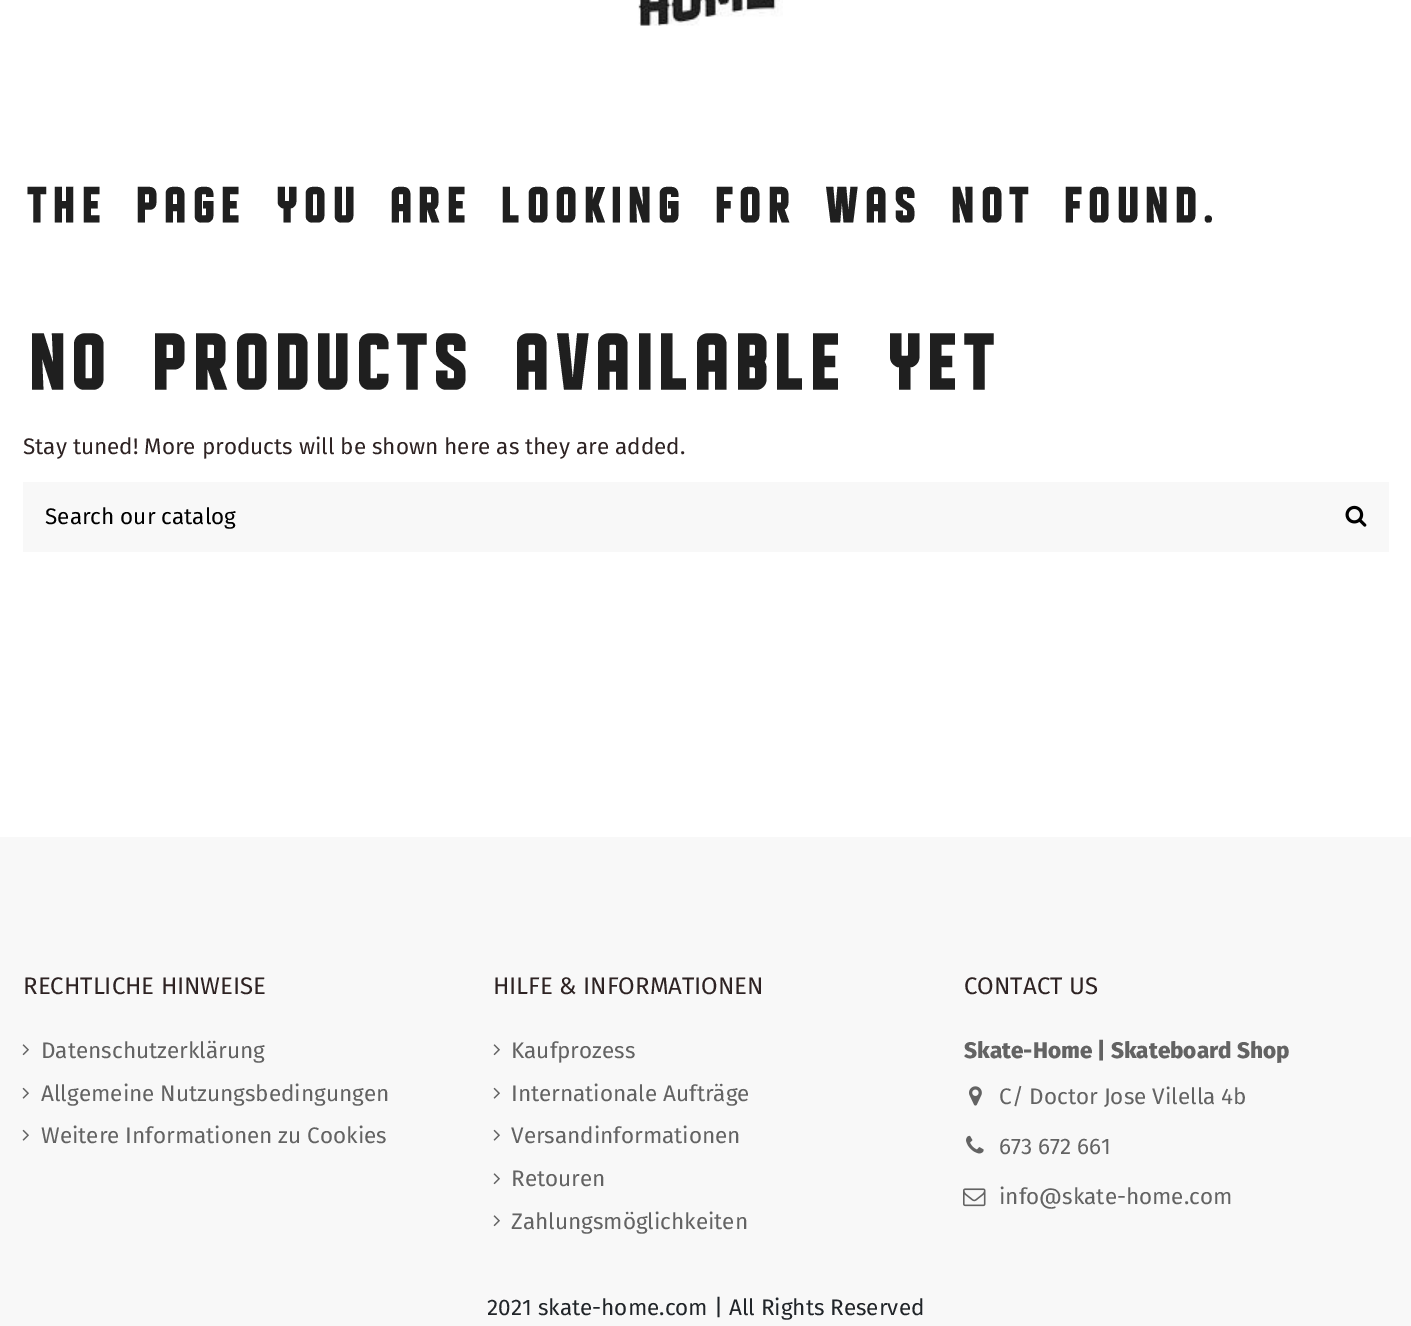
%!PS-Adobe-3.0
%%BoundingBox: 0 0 1411 1326
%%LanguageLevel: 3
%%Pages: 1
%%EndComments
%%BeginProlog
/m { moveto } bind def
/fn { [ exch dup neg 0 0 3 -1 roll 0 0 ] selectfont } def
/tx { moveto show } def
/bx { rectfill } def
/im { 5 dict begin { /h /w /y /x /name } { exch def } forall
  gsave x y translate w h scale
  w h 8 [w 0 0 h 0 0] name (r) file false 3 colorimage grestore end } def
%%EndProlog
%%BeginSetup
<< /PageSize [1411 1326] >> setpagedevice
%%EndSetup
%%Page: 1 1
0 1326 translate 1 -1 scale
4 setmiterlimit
1 setgray
0 0 1411 1326 bx
(image0.raw) 638 0 145 26 im
/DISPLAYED-Bold 57 fn
0.122 setgray
(The page you are looking for was not found.) 23 224 tx
/DISPLAYED-Bold 90 fn
23 392 m -4.5 0 (No products available yet) ashow
/FiraSans-Regular 22.5 fn
0.18 0.137 0.137 setrgbcolor
(Stay tuned! More products will be shown here as they are added.) 23 454 tx
0.973 setgray
23 482 1366 70 bx
0 setgray
(Search our catalog) 45 524 tx
(image1.raw) 1345 505 22 22 im
0.973 setgray
0 837 1411 489 bx
/FiraSans-Regular 24 fn
0.18 0.137 0.137 setrgbcolor
(RECHTLICHE HINWEISE) 23 994 tx
(image2.raw) 22 1044 7 12 im
/FiraSans-Regular 22.5 fn
0.388 setgray
(Datenschutzerklärung) 41 1058 tx
(image3.raw) 22 1087 7 12 im
(Allgemeine Nutzungsbedingungen) 41 1101 tx
(image3.raw) 22 1129 7 12 im
(Weitere Informationen zu Cookies) 41 1143 tx
/FiraSans-Regular 24 fn
0.18 0.137 0.137 setrgbcolor
(HILFE & INFORMATIONEN) 493 994 tx
(image2.raw) 493 1044 7 12 im
/FiraSans-Regular 22.5 fn
0.388 setgray
(Kaufprozess) 511 1058 tx
(image3.raw) 493 1087 7 12 im
(Internationale Aufträge) 511 1101 tx
(image3.raw) 493 1129 7 12 im
(Versandinformationen) 511 1143 tx
(image2.raw) 493 1173 7 12 im
(Retouren) 511 1186 tx
(image2.raw) 493 1215 7 12 im
(Zahlungsmöglichkeiten) 511 1229 tx
/FiraSans-Regular 24 fn
0.18 0.137 0.137 setrgbcolor
(CONTACT US) 964 994 tx
/FiraSans-ExtraBold 22.5 fn
0.388 setgray
(Skate-Home | Skateboard Shop) 964 1058 tx
(image4.raw) 969 1086 13 20 im
/FiraSans-Regular 22.5 fn
(C/ Doctor Jose Vilella 4b) 999 1104 tx
(image5.raw) 966 1135 18 19 im
(673 672 661) 999 1154 tx
(image6.raw) 963 1188 23 19 im
(info@skate-home.com) 999 1204 tx
0.129 0.145 0.161 setrgbcolor
(2021 skate-home.com | All Rights Reserved) 487 1315 tx
showpage
%%EOF
